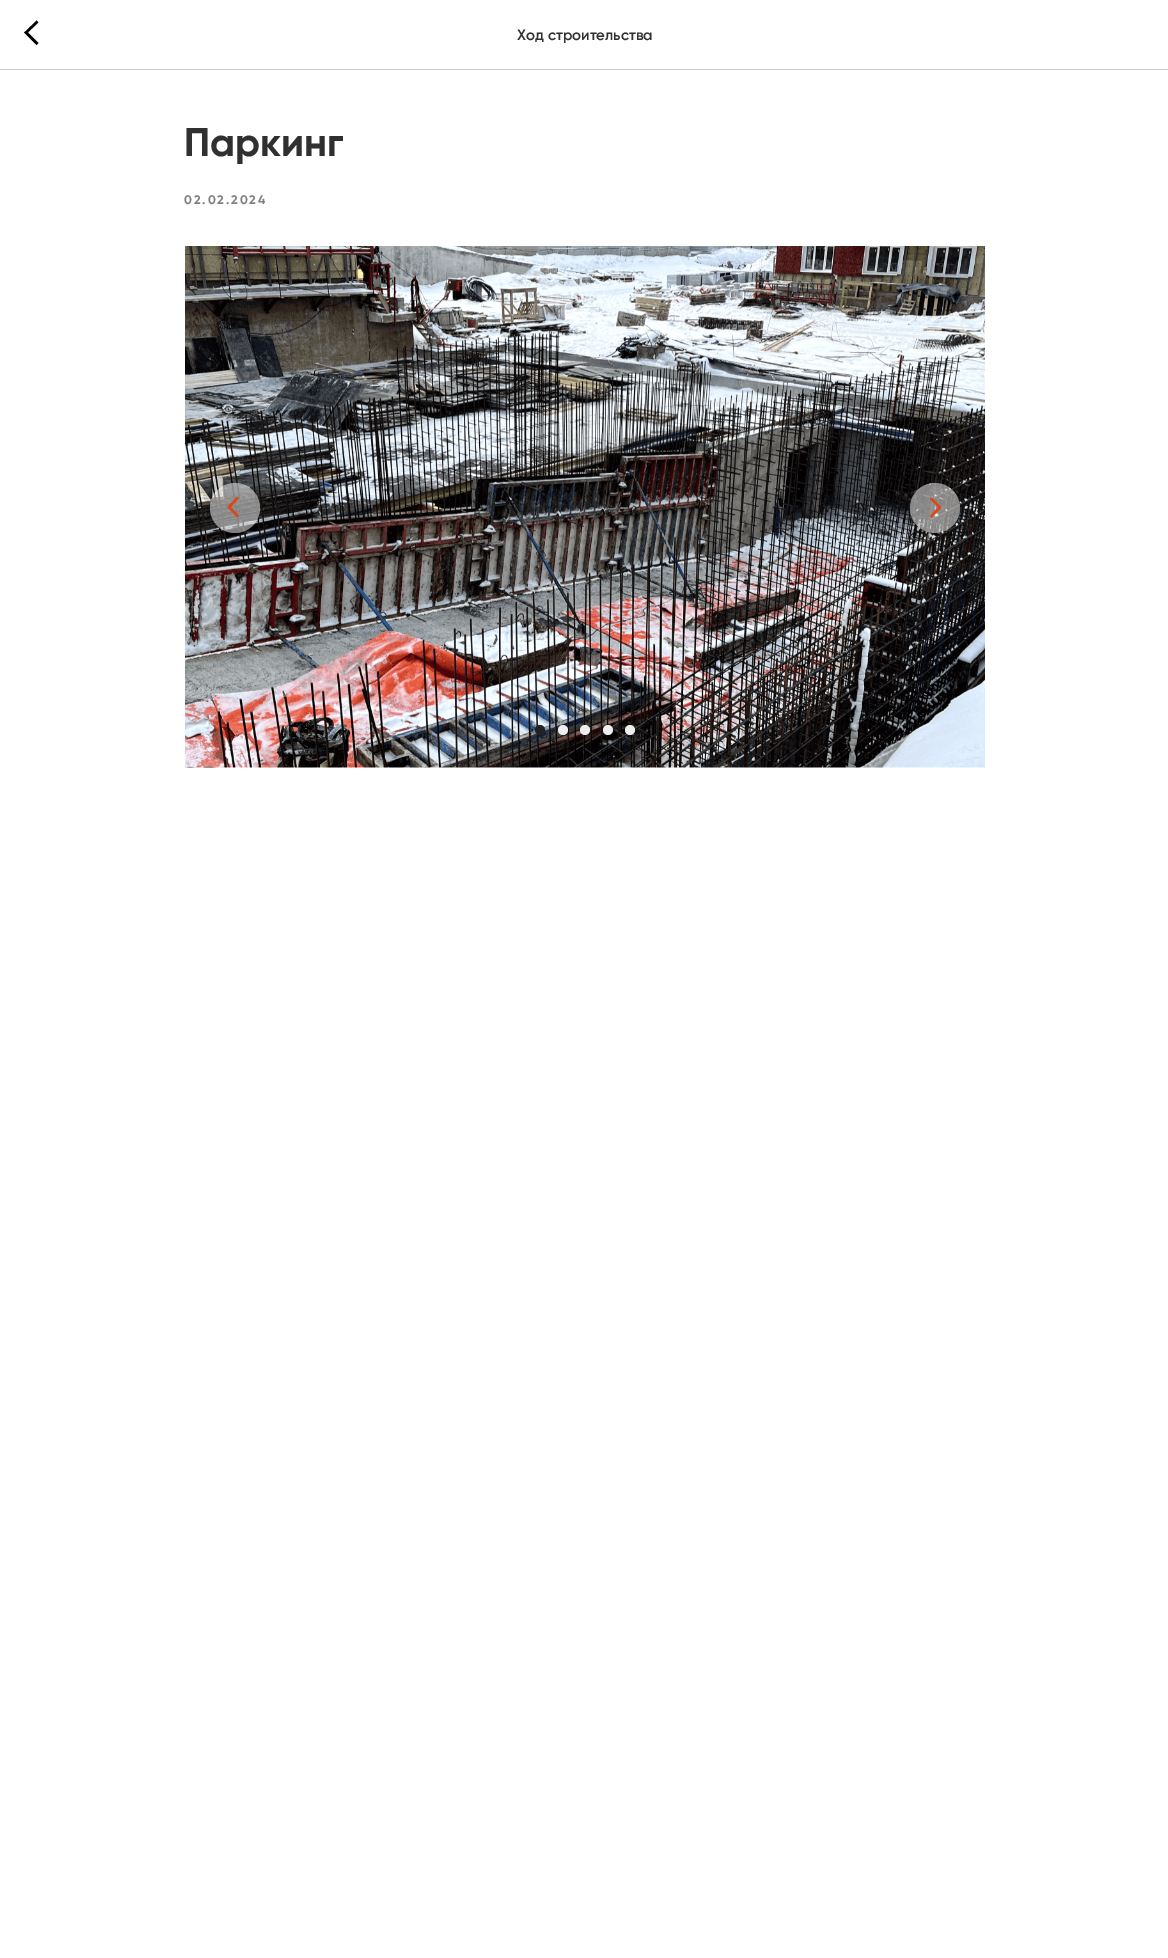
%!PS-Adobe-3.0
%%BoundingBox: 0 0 1168 1958
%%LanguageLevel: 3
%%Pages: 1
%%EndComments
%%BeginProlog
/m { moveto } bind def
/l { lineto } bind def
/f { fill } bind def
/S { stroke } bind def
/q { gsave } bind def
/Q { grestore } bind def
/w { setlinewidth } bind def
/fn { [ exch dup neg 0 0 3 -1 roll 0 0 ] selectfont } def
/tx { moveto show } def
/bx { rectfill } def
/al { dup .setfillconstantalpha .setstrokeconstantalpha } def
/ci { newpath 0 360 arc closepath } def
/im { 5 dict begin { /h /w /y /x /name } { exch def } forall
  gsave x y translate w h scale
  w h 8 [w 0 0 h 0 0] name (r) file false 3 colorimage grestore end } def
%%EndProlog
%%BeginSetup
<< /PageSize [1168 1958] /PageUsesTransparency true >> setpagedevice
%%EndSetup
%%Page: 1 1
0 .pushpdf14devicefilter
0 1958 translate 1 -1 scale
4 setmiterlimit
1 setgray
0 0 1168 1958 bx
0.8 setgray
0 69 1168 1 bx
0 setgray
2.5 w
37.5 44 m 26 32.5 l 37.5 21.5 l S
/Gilroy-SemiBold 15 fn
0.188 setgray
(Ход строительства) 517 40 tx
/Gilroy-Bold 40 fn
(Паркинг) 184 156 tx
/Gilroy-Bold 12.5 fn
0.502 setgray
184 204 m 1.9 0 (02.02.2024) ashow
(image0.raw) 185 246 800 522 im
0.5 al
1 setgray
235 508 25 ci f
1 al
0.867 0.275 0.078 setrgbcolor
2.4 w
238 516.5 m 229 507 l 238 497.5 l S
0.5 al
1 setgray
935 508 25 ci f
q
930 498 11 21 rectclip
1 al
0.867 0.275 0.078 setrgbcolor
930.5 498 m 940 507.5 l 930.5 517 l S
Q
1 al
0.133 setgray
540 730 5 ci f
0.933 setgray
563 730 5 ci f
585 730 5 ci f
608 730 5 ci f
630 730 5 ci f
.poppdf14devicefilter showpage
%%EOF
